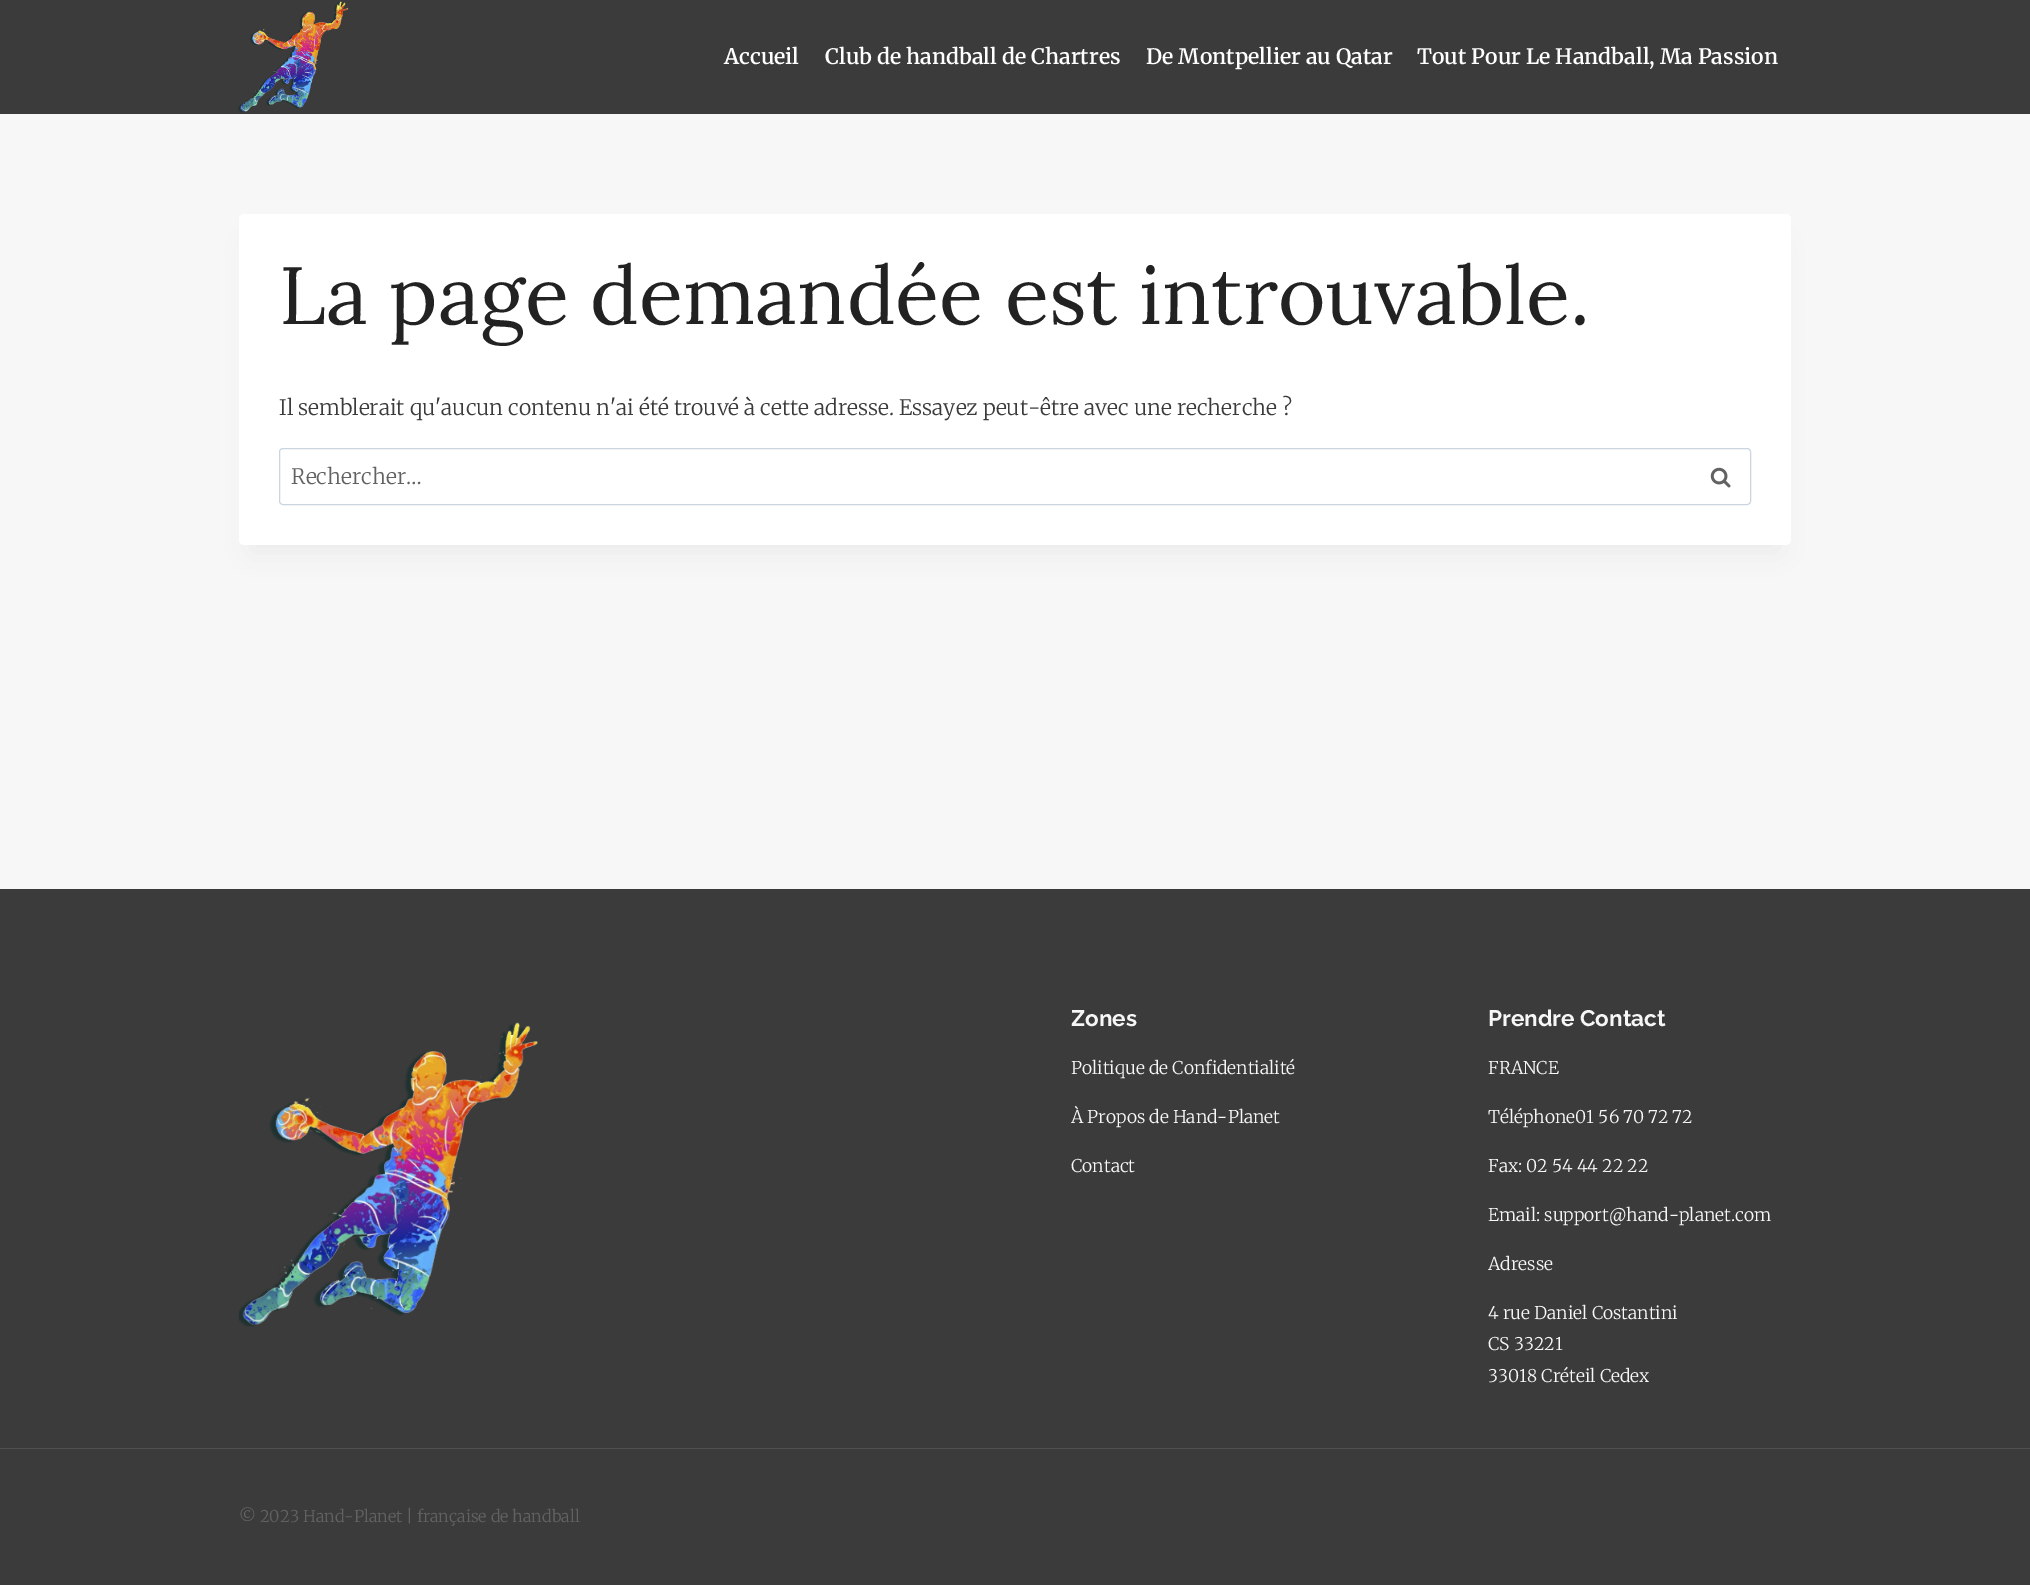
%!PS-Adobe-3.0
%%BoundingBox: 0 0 2030 1585
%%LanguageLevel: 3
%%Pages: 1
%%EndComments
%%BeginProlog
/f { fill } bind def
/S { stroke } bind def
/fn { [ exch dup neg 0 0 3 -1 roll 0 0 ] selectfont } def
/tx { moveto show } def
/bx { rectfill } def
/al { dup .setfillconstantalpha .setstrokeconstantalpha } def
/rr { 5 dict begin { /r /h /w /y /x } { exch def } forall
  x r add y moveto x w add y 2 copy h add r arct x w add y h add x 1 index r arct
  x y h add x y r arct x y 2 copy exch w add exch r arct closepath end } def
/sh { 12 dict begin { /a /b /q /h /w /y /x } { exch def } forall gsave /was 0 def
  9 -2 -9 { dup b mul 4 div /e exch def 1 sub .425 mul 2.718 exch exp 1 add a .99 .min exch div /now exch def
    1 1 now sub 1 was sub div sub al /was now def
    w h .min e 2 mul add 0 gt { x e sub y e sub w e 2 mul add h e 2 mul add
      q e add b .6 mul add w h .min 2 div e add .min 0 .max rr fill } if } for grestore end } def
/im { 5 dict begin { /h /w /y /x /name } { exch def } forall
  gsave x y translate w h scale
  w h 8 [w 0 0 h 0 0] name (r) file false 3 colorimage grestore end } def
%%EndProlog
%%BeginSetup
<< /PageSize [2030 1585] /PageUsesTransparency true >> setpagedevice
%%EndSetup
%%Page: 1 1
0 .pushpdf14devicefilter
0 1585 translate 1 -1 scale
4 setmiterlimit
0.969 setgray
0 0 2030 1585 bx
0.231 setgray
0 0 2030 114 bx
(image0.raw) 238 1 111 112 im
/Merriweather-SemiBold 21.25 fn
1 setgray
(Accueil) 724 64 tx
(Club de handball de Chartres) 825 64 tx
(De Montpellier au Qatar) 1146 64 tx
(Tout Pour Le Handball, Ma Passion) 1417 64 tx
0 setgray
251 245 1528 306 0 15.5 0.05 sh
1 setgray
239 214 1552 331 5 rr f
/Lora-Regular 81.25 fn
0.133 setgray
(La page demandée est introuvable.) 279 324 tx
/Merriweather-Light 21.25 fn
0.231 setgray
(Il semblerait qu'aucun contenu n'ai été trouvé à cette adresse. Essayez peut-être avec une recherche ?) 279 415 tx
0.796 0.835 0.878 setrgbcolor
279.5 448.5 1471 56 3.5 rr S
0.384 setgray
(Rechercher…) 291 484 tx
(image1.raw) 1710 467 21 21 im
0.231 setgray
0 889 2030 696 bx
0.318 setgray
0 1448 2030 1 bx
(image2.raw) 238 1022 300 305 im
/Raleway-Thin 22.5 fn
0.969 setgray
(Zones) 1071 1026 tx
/Merriweather-Light 17.5 fn
(Politique de Confidentialité) 1071 1074 tx
(À Propos de Hand-Planet) 1071 1123 tx
(Contact) 1071 1172 tx
/Raleway-Thin 22.5 fn
(Prendre Contact) 1488 1026 tx
/Merriweather-Light 17.5 fn
(FRANCE) 1488 1074 tx
(Téléphone01 56 70 72 72) 1488 1123 tx
(Fax: 02 54 44 22 22) 1488 1172 tx
(Email: support@hand-planet.com) 1488 1221 tx
(Adresse) 1488 1270 tx
(4 rue Daniel Costantini) 1488 1319 tx
(CS 33221) 1488 1350 tx
(33018 Créteil Cedex) 1488 1382 tx
/Merriweather-Light 16.25 fn
0.384 setgray
(© 2023 Hand-Planet | française de handball) 239 1522 tx
.poppdf14devicefilter showpage
%%EOF
